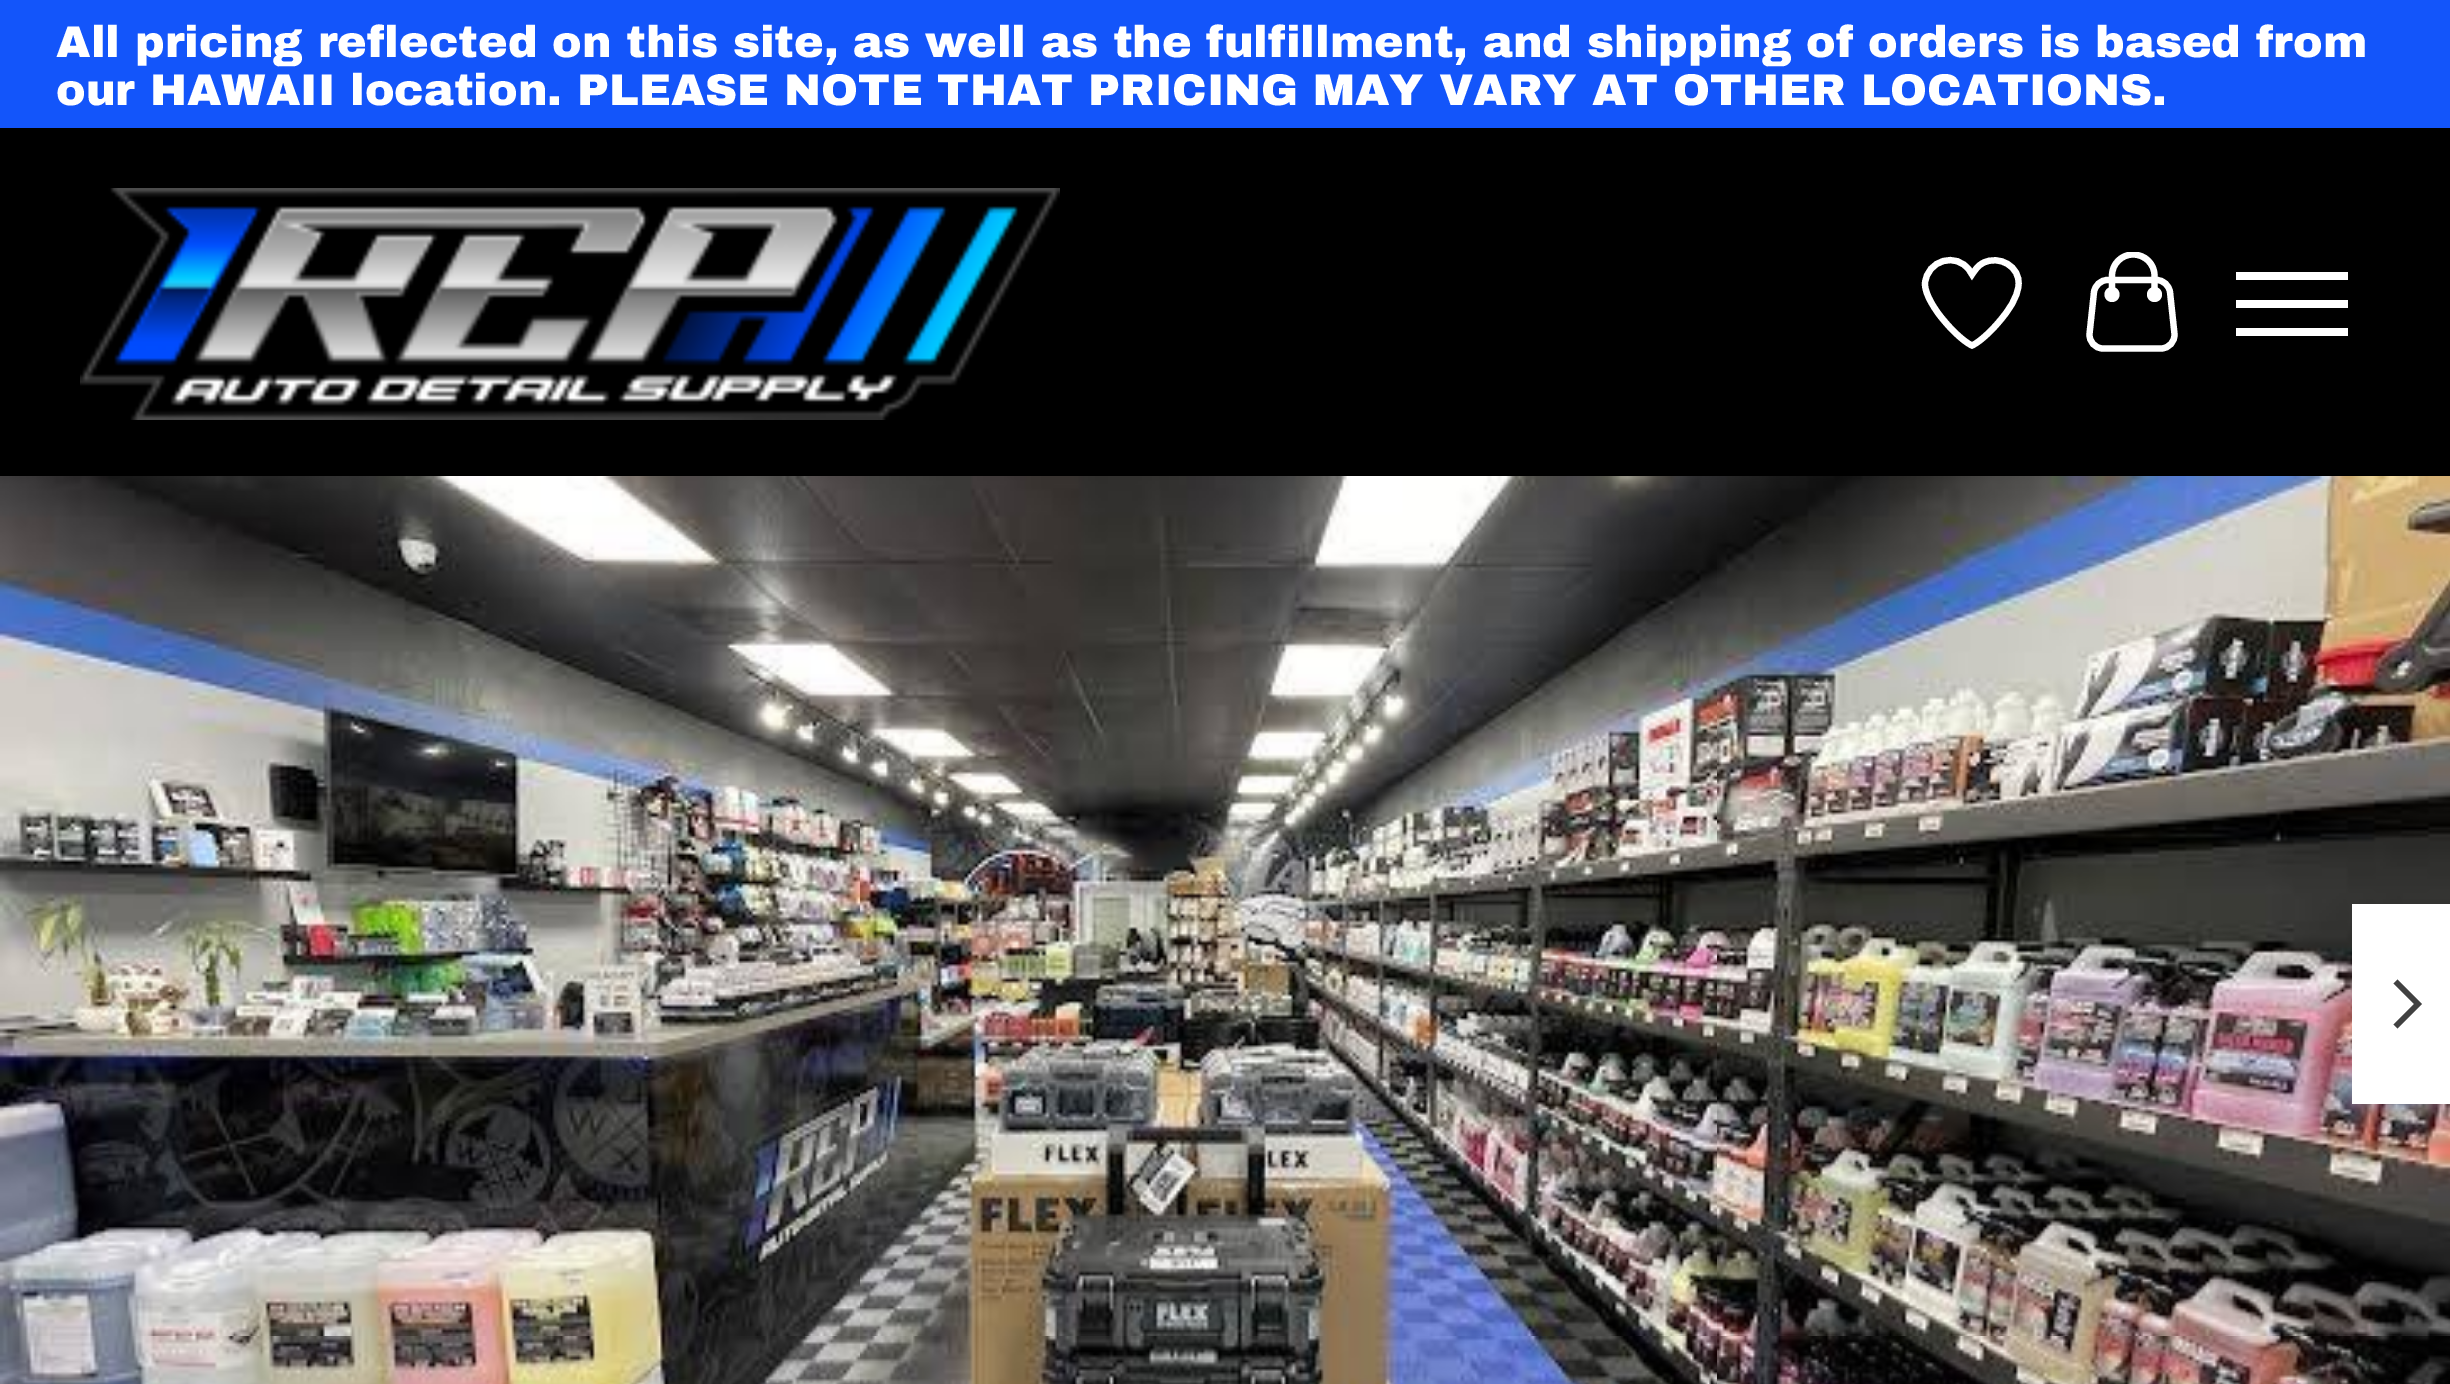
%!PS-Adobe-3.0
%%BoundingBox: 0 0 2450 1384
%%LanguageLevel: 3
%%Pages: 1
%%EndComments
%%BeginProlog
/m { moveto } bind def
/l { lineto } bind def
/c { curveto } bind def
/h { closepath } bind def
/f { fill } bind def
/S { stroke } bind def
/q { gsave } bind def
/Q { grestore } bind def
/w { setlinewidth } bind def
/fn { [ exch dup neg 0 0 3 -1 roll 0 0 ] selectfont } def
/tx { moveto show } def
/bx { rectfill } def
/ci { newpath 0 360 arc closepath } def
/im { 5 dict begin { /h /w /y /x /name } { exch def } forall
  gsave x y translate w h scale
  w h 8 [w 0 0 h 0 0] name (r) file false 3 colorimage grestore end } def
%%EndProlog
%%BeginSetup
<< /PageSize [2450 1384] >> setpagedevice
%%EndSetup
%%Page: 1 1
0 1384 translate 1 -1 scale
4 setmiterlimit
1 setgray
0 0 2450 1384 bx
0 setgray
0 128 2450 348 bx
0.075 0.333 0.98 setrgbcolor
0 0 2450 128 bx
/ArchivoBlack-Black 44.45 fn
1 setgray
(All pricing reflected on this site, as well as the fulfillment, and shipping of orders is based from) 56 57 tx
(our HAWAII location. PLEASE NOTE THAT PRICING MAY VARY AT OTHER LOCATIONS.) 56 105 tx
(image0.raw) 80 188 980 232 im
6.2 w
1969.5 270.5 m 1972 274.5 l 1975 270 1978 265.5 1983 263 c 1999 254.5 2020.5 266.5 2018.5 285 c 2017.5 298 2008.5 310.5 2000.5 320 c 1994.5 327.5 1981 341.5 1972 345.5 c 1963 341.5 1949.5 327.5 1943.5 320 c 1936.5 312 1924.5 294.5 1925 283.5 c 1927 260 1956.5 251.5 1969.5 270.5 c h S
2094 292 m 2095 285.5 2100.5 280 2107.5 280 c 2156.5 280 l 2163.5 280 2169 285.5 2170 292 c 2174.5 334 l 2175 341.5 2169 348.5 2161 348.5 c 2103 348.5 l 2095 348.5 2089 341.5 2089.5 334 c h S
q
2080 252 104 104 rectclip
2112 292 m 2112 275.5 l 2112 264 2121.5 254.5 2133 254.5 c 2145 254.5 2154.5 264 2154.5 275.5 c 2154.5 292 l S
Q
2112 294.5 7.5 ci f
2154.5 294.5 7.5 ci f
2236 300 112 8 bx
2236 272 112 8 bx
2236 328 112 8 bx
(image1.raw) 0 476 2450 908 im
2352 904 98 200 bx
0.255 setgray
5.6 w
2395.5 1026.5 m 2418 1004 l 2395.5 981.5 l S
showpage
%%EOF
